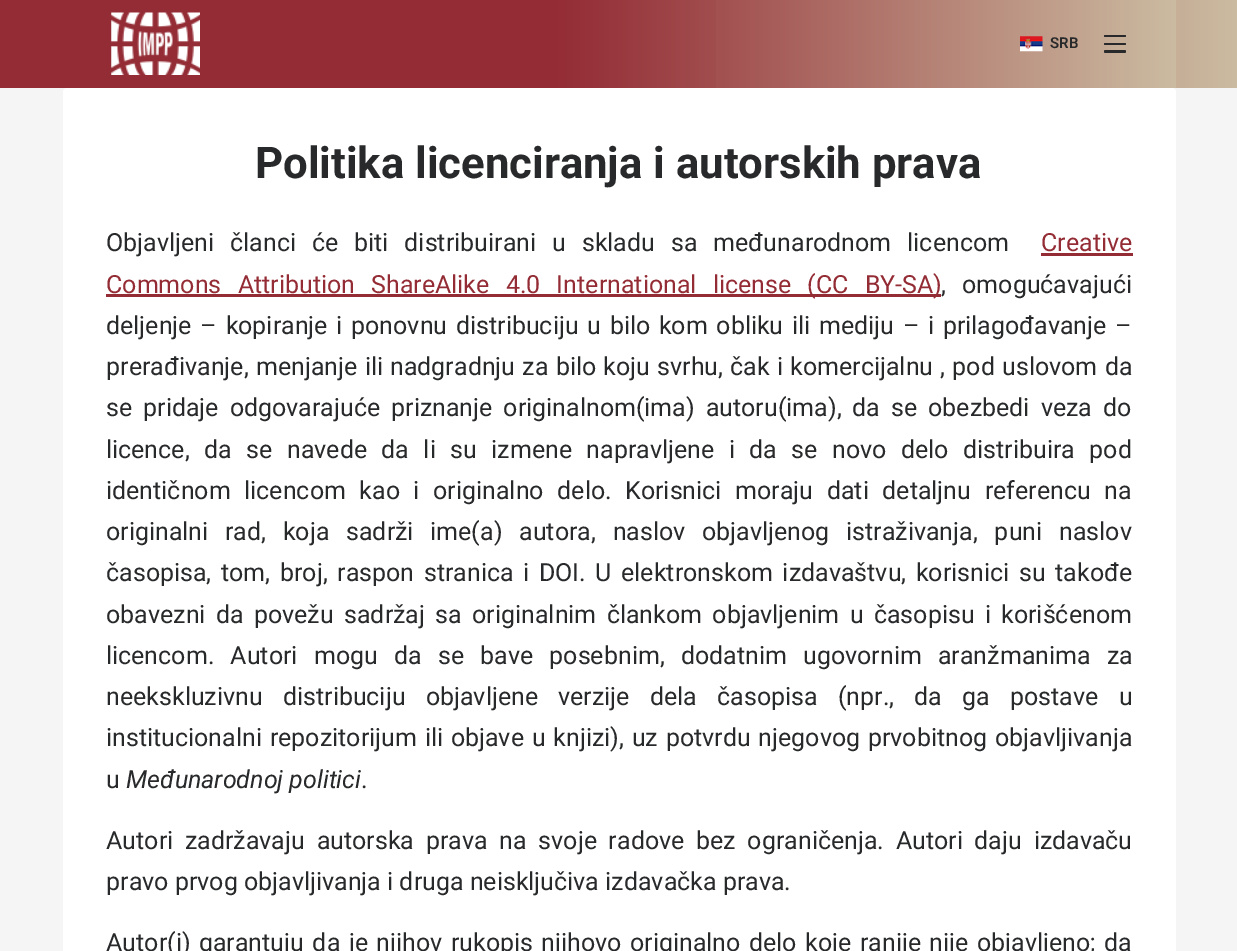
%!PS-Adobe-3.0
%%BoundingBox: 0 0 1237 951
%%LanguageLevel: 3
%%Pages: 1
%%EndComments
%%BeginProlog
/m { moveto } bind def
/l { lineto } bind def
/h { closepath } bind def
/f { fill } bind def
/q { gsave } bind def
/Q { grestore } bind def
/fn { [ exch dup neg 0 0 3 -1 roll 0 0 ] selectfont } def
/tx { moveto show } def
/bx { rectfill } def
/rr { 5 dict begin { /r /h /w /y /x } { exch def } forall
  x r add y moveto x w add y 2 copy h add r arct x w add y h add x 1 index r arct
  x y h add x y r arct x y 2 copy exch w add exch r arct closepath end } def
/im { 5 dict begin { /h /w /y /x /name } { exch def } forall
  gsave x y translate w h scale
  w h 8 [w 0 0 h 0 0] name (r) file false 3 colorimage grestore end } def
%%EndProlog
%%BeginSetup
<< /PageSize [1237 951] >> setpagedevice
%%EndSetup
%%Page: 1 1
0 951 translate 1 -1 scale
4 setmiterlimit
0.961 setgray
0 0 1237 951 bx
q 0 0 m 1237 0 l 1237 88 l 0 88 l h clip newpath
<< /ShadingType 2 /ColorSpace /DeviceRGB /Coords [0 44 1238 44] /Extend [true true] /Function << /FunctionType 3 /Domain [0 1] /Functions [<< /FunctionType 2 /Domain [0 1] /C0 [0.58 0.173 0.208] /C1 [0.58 0.173 0.208] /N 1 >> << /FunctionType 2 /Domain [0 1] /C0 [0.58 0.173 0.208] /C1 [0.796 0.733 0.631] /N 1 >>] /Bounds [0.45] /Encode [0 1 0 1] >> >> shfill Q
q 716 0 m 1176 0 l 1176 88 l 716 88 l h clip newpath
<< /ShadingType 2 /ColorSpace /DeviceRGB /Coords [63 44 1176 44] /Extend [true true] /Function << /FunctionType 3 /Domain [0 1] /Functions [<< /FunctionType 2 /Domain [0 1] /C0 [0.58 0.173 0.208] /C1 [0.58 0.173 0.208] /N 1 >> << /FunctionType 2 /Domain [0 1] /C0 [0.58 0.173 0.208] /C1 [0.796 0.733 0.631] /N 1 >>] /Bounds [0.45] /Encode [0 1 0 1] >> >> shfill Q
(image0.raw) 111 12 89 63 im
(image1.raw) 1020 36 23 16 im
/Roboto-SemiBold 15 fn
0.157 0.161 0.165 setrgbcolor
(SRB) 1050 48 tx
1104 35 22 2 1 rr f
1104 43 22 2 1 rr f
1104 50 22 3 1.5 rr f
1 setgray
63 88 1113 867 4 rr f
/Roboto-Bold 43.75 fn
0.157 0.161 0.165 setrgbcolor
(Politika licenciranja i autorskih prava) 255 178 tx
/Roboto-Regular 25 fn
106 251 m 9.75 0 32 (Objavljeni članci će biti distribuirani u skladu sa međunarodnom licencom) widthshow
0.58 0.173 0.208 setrgbcolor
(Creative) 1041 251 tx
1041 253 92 3 bx
106 294 835 3 bx
106 293 m 10 0 32 (Commons Attribution ShareAlike 4.0 International license \(CC BY-SA\)) widthshow
0.157 0.161 0.165 setrgbcolor
941 293 m 10 0 32 (, omogućavajući) widthshow
106 334 m 2.5 0 32 (deljenje – kopiranje i ponovnu distribuciju u bilo kom obliku ili mediju – i prilagođavanje –) widthshow
106 375 m 1 0 32 (prerađivanje, menjanje ili nadgradnju za bilo koju svrhu, čak i komercijalnu , pod uslovom da) widthshow
106 416 m 4.75 0 32 (se pridaje odgovarajuće priznanje originalnom\(ima\) autoru\(ima\), da se obezbedi veza do) widthshow
106 458 m 8.25 0 32 (licence, da se navede da li su izmene napravljene i da se novo delo distribuira pod) widthshow
106 499 m 7.4 0 32 (identičnom licencom kao i originalno delo. Korisnici moraju dati detaljnu referencu na) widthshow
106 540 m 10.5 0 32 (originalni rad, koja sadrži ime\(a\) autora, naslov objavljenog istraživanja, puni naslov) widthshow
106 581 m 3.4 0 32 (časopisa, tom, broj, raspon stranica i DOI. U elektronskom izdavaštvu, korisnici su takođe) widthshow
106 623 m 4.1 0 32 (obavezni da povežu sadržaj sa originalnim člankom objavljenim u časopisu i korišćenom) widthshow
106 664 m 10 0 32 (licencom. Autori mogu da se bave posebnim, dodatnim ugovornim aranžmanima za) widthshow
106 705 m 14 0 32 (neekskluzivnu distribuciju objavljene verzije dela časopisa \(npr., da ga postave u) widthshow
106 746 m 1.6 0 32 (institucionalni repozitorijum ili objave u knjizi\), uz potvrdu njegovog prvobitnog objavljivanja) widthshow
(u) 106 788 tx
/Roboto-Italic 25 fn
(Međunarodnoj politici) 126 788 tx
/Roboto-Regular 25 fn
(.) 361 788 tx
106 849 m 5.5 0 32 (Autori zadržavaju autorska prava na svoje radove bez ograničenja. Autori daju izdavaču) widthshow
(pravo prvog objavljivanja i druga neisključiva izdavačka prava.) 106 890 tx
106 951 m 2.25 0 32 (Autor\(i\) garantuju da je njihov rukopis njihovo originalno delo koje ranije nije objavljeno; da) widthshow
showpage
%%EOF
